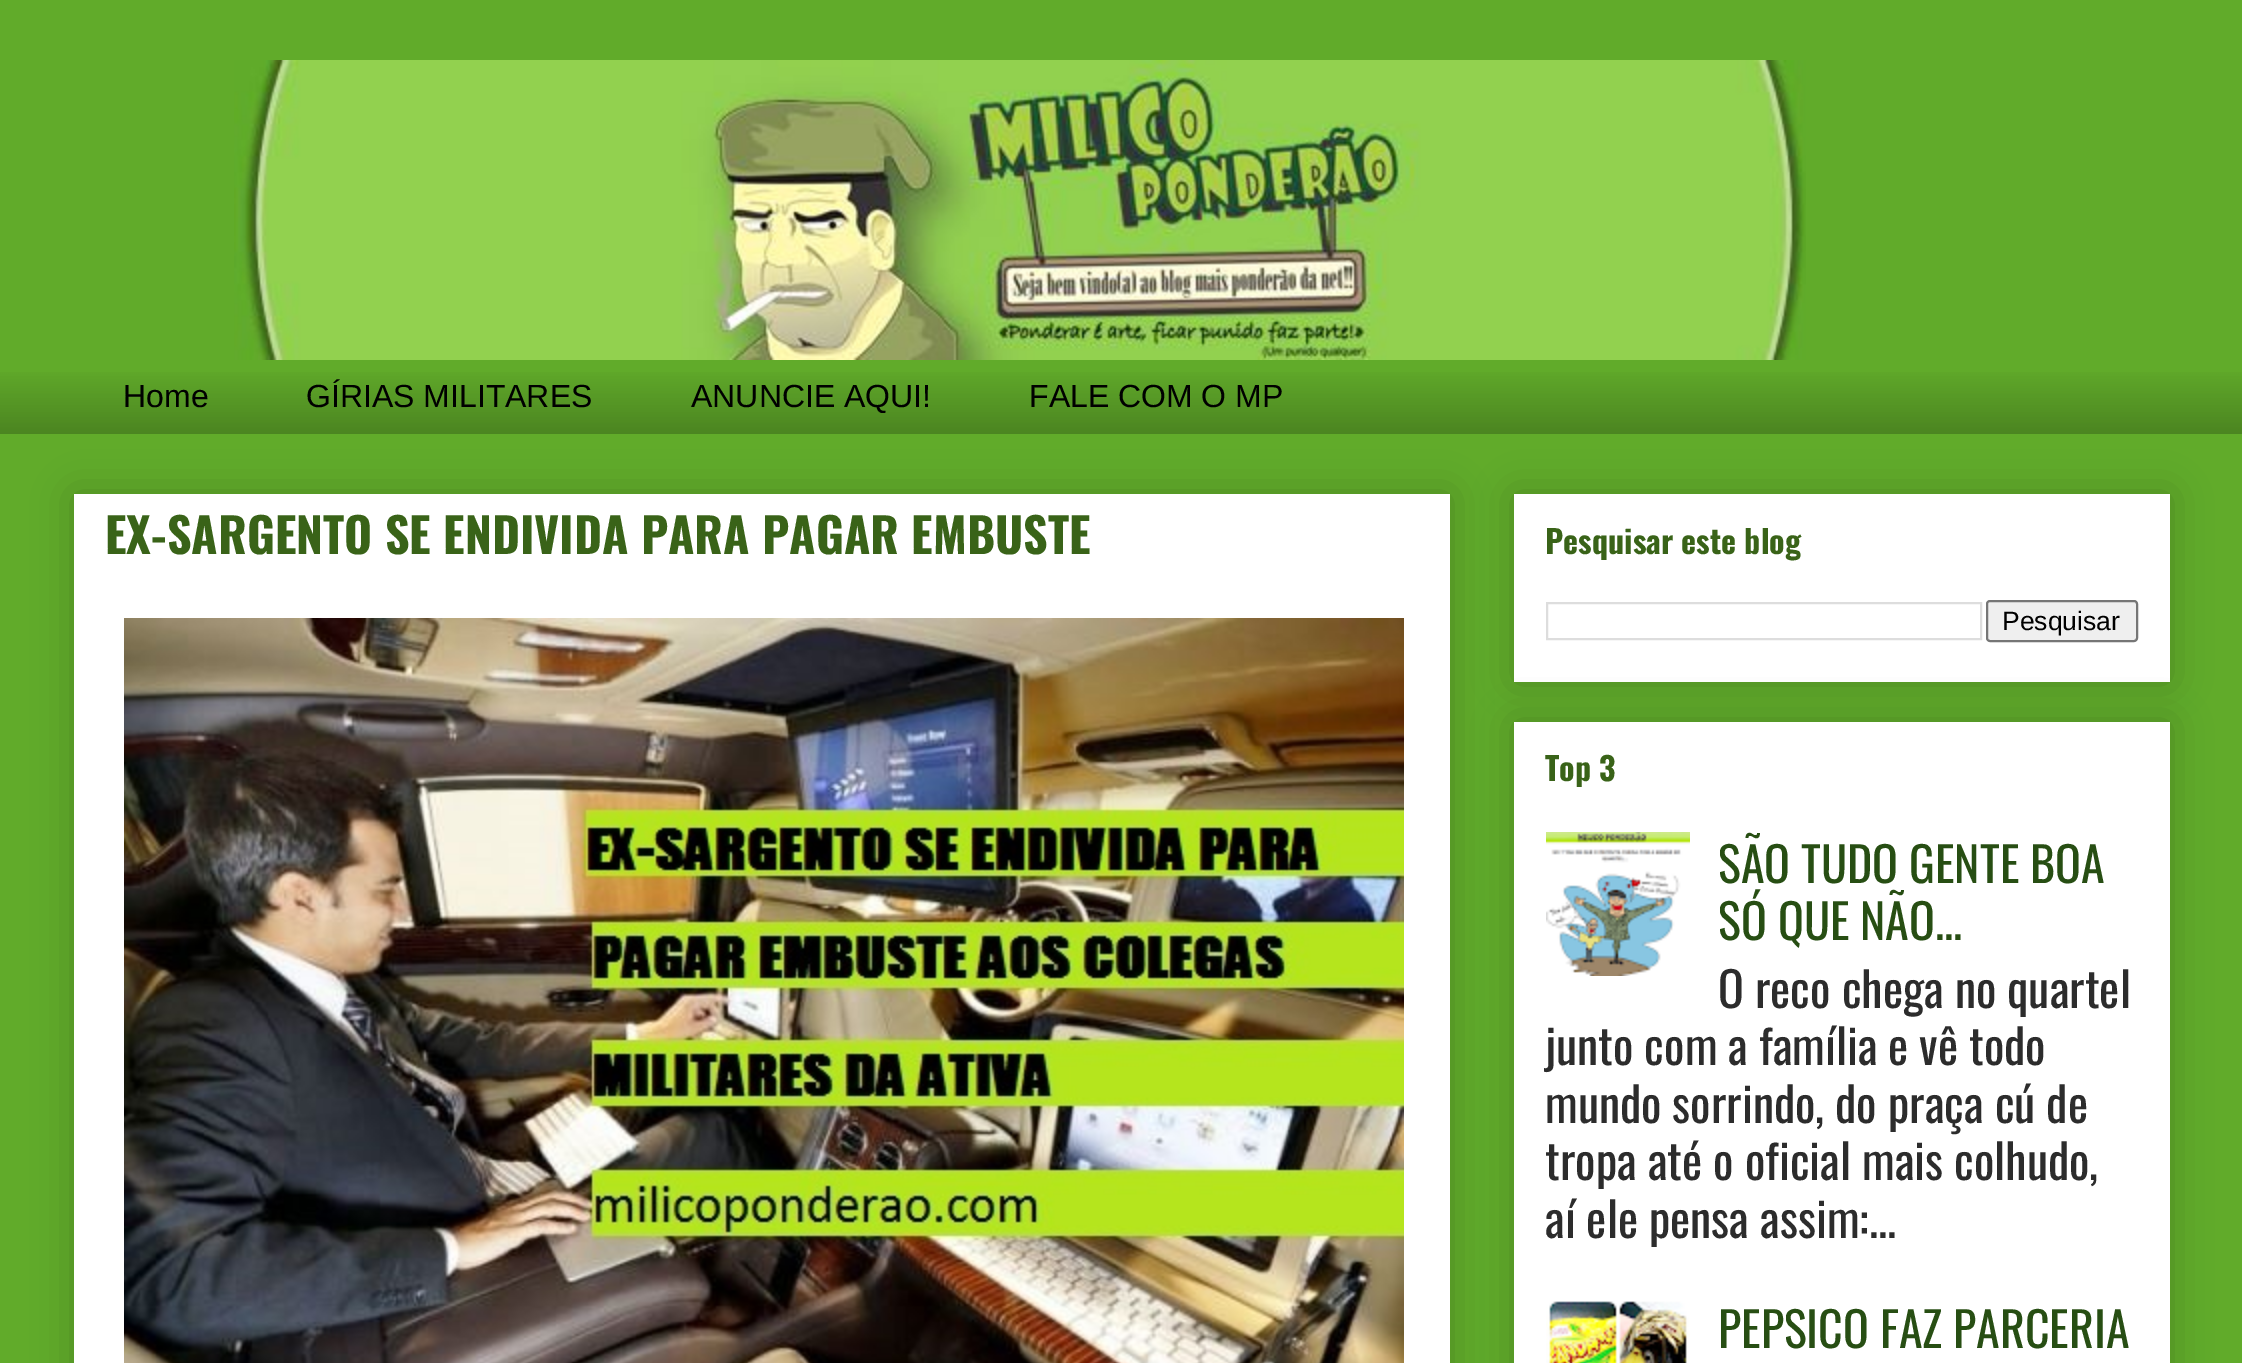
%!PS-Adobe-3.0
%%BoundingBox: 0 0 2242 1363
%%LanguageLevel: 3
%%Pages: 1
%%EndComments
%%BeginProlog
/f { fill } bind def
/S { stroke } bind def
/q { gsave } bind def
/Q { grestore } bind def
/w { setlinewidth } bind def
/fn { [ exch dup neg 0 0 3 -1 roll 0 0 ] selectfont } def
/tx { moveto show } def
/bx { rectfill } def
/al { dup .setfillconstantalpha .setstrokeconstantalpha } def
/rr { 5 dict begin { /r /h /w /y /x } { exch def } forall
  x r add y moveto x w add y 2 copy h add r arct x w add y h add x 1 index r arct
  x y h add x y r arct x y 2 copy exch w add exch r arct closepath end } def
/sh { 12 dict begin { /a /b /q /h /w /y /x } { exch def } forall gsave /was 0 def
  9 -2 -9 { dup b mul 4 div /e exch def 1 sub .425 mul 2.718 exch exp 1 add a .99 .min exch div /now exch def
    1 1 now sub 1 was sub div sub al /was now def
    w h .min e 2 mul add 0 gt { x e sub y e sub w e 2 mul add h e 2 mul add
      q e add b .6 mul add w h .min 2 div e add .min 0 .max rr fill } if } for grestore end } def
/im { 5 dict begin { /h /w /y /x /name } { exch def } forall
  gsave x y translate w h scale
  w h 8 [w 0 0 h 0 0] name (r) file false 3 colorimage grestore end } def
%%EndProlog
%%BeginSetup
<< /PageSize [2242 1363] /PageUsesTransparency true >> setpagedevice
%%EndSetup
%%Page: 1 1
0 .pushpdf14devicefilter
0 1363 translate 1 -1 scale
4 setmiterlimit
0.38 0.671 0.165 setrgbcolor
0 0 2242 1363 bx
(image0.raw) 234 60 1572 300 im
(image1.raw) 0 372 2242 62 im
/LiberationSans-Regular 32 fn
0 setgray
(Home) 123 407 tx
(GÍRIAS MILITARES) 306 407 tx
(ANUNCIE AQUI!) 691 407 tx
(FALE COM O MP) 1029 407 tx
74 494 1376 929 0 20 0.2 sh
1 setgray
74 494 1376 869 bx
/Oswald-Bold 48 fn
0.224 0.388 0.094 setrgbcolor
(EX-SARGENTO SE ENDIVIDA PARA PAGAR EMBUSTE) 105 554 tx
(image2.raw) 124 618 1280 745 im
0 setgray
1514 494 656 188 0 20 0.2 sh
1 setgray
1514 494 656 188 bx
/Oswald-Bold 32 fn
0.224 0.388 0.094 setrgbcolor
(Pesquisar este blog) 1545 554 tx
0.867 setgray
2 w
1547 603 434 36 rectstroke
0.937 setgray
1987 601 150 40 3 rr q f Q
0.463 setgray
S
/LiberationSans-Regular 26.5 fn
0 setgray
(Pesquisar) 2002 630 tx
1514 722 656 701 0 20 0.2 sh
1 setgray
1514 722 656 641 bx
/Oswald-Bold 32 fn
0.224 0.388 0.094 setrgbcolor
(Top 3) 1545 781 tx
(image3.raw) 1546 832 144 144 im
/Oswald-Regular 48 fn
0.153 0.306 0.075 setrgbcolor
(SÃO TUDO GENTE BOA) 1718 883 tx
(SÓ QUE NÃO...) 1718 940 tx
0.173 setgray
(O reco chega no quartel) 1718 1008 tx
(junto com a família e vê todo) 1545 1065 tx
(mundo sorrindo, do praça cú de) 1545 1123 tx
(tropa até o oficial mais colhudo,) 1545 1180 tx
(aí ele pensa assim:...) 1545 1238 tx
(image4.raw) 1546 1301 144 62 im
0.153 0.306 0.075 setrgbcolor
(PEPSICO FAZ PARCERIA) 1718 1348 tx
.poppdf14devicefilter showpage
%%EOF
